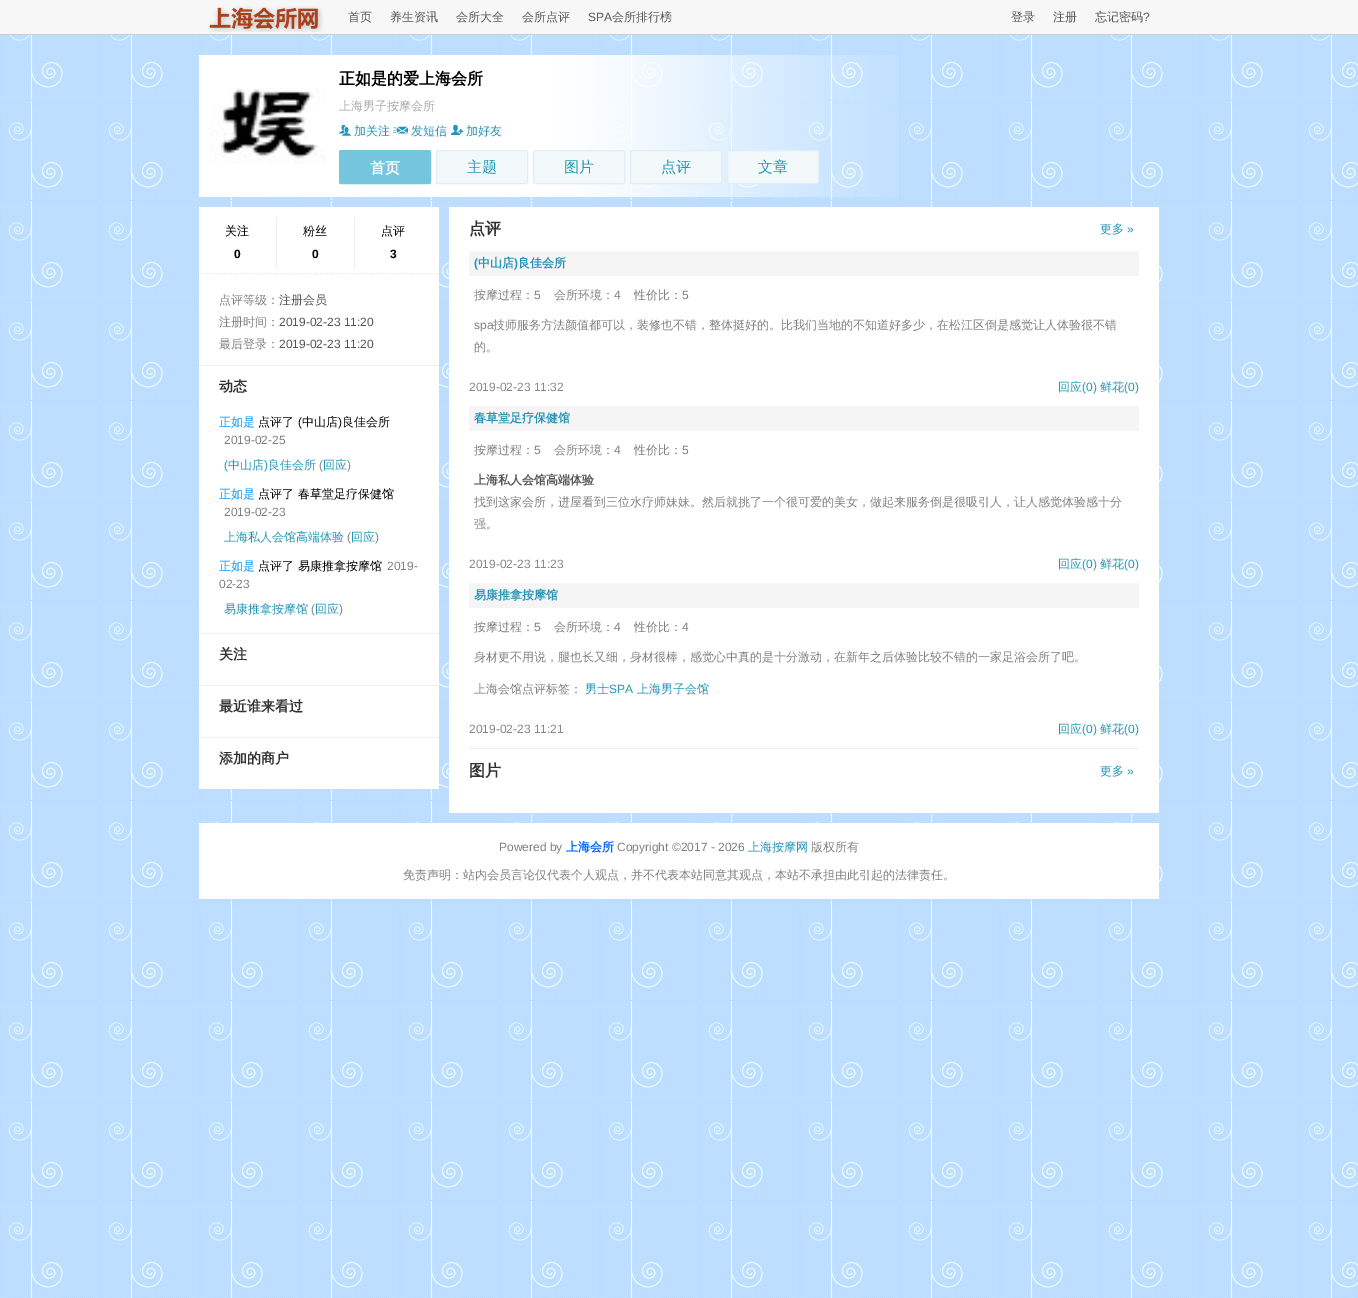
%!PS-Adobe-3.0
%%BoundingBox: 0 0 1358 1298
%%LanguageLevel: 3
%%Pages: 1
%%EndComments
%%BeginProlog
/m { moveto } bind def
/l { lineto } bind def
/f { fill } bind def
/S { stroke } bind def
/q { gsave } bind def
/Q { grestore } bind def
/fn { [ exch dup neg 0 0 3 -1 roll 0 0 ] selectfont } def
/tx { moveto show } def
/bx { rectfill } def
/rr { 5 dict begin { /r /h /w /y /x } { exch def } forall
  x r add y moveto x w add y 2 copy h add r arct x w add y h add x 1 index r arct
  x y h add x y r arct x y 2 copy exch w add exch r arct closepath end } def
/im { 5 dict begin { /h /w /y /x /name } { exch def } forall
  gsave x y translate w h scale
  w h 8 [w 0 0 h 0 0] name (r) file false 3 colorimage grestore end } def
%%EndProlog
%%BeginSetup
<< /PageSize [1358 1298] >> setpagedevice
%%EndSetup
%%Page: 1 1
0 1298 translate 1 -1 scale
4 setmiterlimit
1 setgray
0 0 1358 1298 bx
(image0.raw) 0 35 1358 1263 im
0.969 setgray
0 0 1358 34 bx
0.8 setgray
0 34 1358 1 bx
(image1.raw) 209 6 114 26 im
/WenQuanYiZenHei-Medium 12 fn
0.333 setgray
(首页) 348 21 tx
(养生资讯) 390 21 tx
(会所大全) 456 21 tx
(会所点评) 522 21 tx
/LiberationSans-Regular 12 fn
(SPA) 588 21 tx
/WenQuanYiZenHei-Medium 12 fn
(会所排行榜) 612 21 tx
(登录) 1011 21 tx
(注册) 1053 21 tx
(忘记密码) 1095 21 tx
/LiberationSans-Regular 12 fn
(?) 1143 21 tx
(image2.raw) 199 55 700 142 im
(image3.raw) 209 88 117 76 im
/WenQuanYiZenHei-Bold 16 fn
0 setgray
(正如是的爱上海会所) 339 84 tx
/WenQuanYiZenHei-Medium 12 fn
0.667 setgray
(上海男子按摩会所) 339 110 tx
(image4.raw) 339 124 12 12 im
0.145 0.584 0.718 setrgbcolor
(加关注) 354 135 tx
(image5.raw) 393 126 15 8 im
(发短信) 411 135 tx
(image6.raw) 451 124 12 11 im
(加好友) 466 135 tx
0.459 0.773 0.871 setrgbcolor
339.5 150.5 91 33 1.5 rr q f Q
S
/WenQuanYiZenHei-Bold 15 fn
1 setgray
(首页) 370 173 tx
0.953 0.973 0.984 setrgbcolor
436.5 150.5 91 33 1.5 rr q f Q
0.878 0.933 0.965 setrgbcolor
S
/WenQuanYiZenHei-Medium 15 fn
0.145 0.584 0.718 setrgbcolor
(主题) 467 172 tx
0.953 0.973 0.984 setrgbcolor
533.5 150.5 91 33 1.5 rr q f Q
0.878 0.933 0.965 setrgbcolor
S
0.145 0.584 0.718 setrgbcolor
(图片) 564 172 tx
0.953 0.973 0.984 setrgbcolor
630.5 150.5 91 33 1.5 rr q f Q
0.878 0.933 0.965 setrgbcolor
S
0.145 0.584 0.718 setrgbcolor
(点评) 661 172 tx
0.953 0.973 0.984 setrgbcolor
727.5 150.5 91 33 1.5 rr q f Q
0.878 0.933 0.965 setrgbcolor
S
0.145 0.584 0.718 setrgbcolor
(文章) 758 172 tx
1 setgray
199 207 240 582 bx
0.933 setgray
[3 2.04] 0 setdash
199 273.5 m 439 273.5 l S
276 217 1 51 bx
/WenQuanYiZenHei-Medium 12 fn
0 setgray
(关注) 225 235 tx
/LiberationSans-Bold 12 fn
(0) 234 258 tx
0.933 setgray
354 217 1 51 bx
/WenQuanYiZenHei-Medium 12 fn
0 setgray
(粉丝) 303 235 tx
/LiberationSans-Bold 12 fn
(0) 312 258 tx
/WenQuanYiZenHei-Medium 12 fn
(点评) 381 235 tx
/LiberationSans-Bold 12 fn
(3) 390 258 tx
0.933 setgray
199 365 240 1 bx
/WenQuanYiZenHei-Medium 12 fn
0.502 setgray
(点评等级：) 219 304 tx
0.333 setgray
(注册会员) 279 304 tx
0.502 setgray
(注册时间：) 219 326 tx
/LiberationSans-Regular 12 fn
0.333 setgray
(2019-02-23 11:20) 279 326 tx
/WenQuanYiZenHei-Medium 12 fn
0.502 setgray
(最后登录：) 219 348 tx
/LiberationSans-Regular 12 fn
0.333 setgray
(2019-02-23 11:20) 279 348 tx
0.933 setgray
199 633 240 1 bx
/WenQuanYiZenHei-Bold 14 fn
0.196 setgray
(动态) 219 391 tx
/WenQuanYiZenHei-Medium 12 fn
0 0.6 1 setrgbcolor
(正如是) 219 426 tx
0 setgray
(点评了) 258 426 tx
/LiberationSans-Regular 12 fn
(\() 298 426 tx
/WenQuanYiZenHei-Medium 12 fn
(中山店) 302 426 tx
/LiberationSans-Regular 12 fn
(\)) 338 426 tx
/WenQuanYiZenHei-Medium 12 fn
(良佳会所) 342 426 tx
/LiberationSans-Regular 12 fn
0.502 setgray
(2019-02-25) 224 444 tx
0.145 0.584 0.718 setrgbcolor
(\() 224 469 tx
/WenQuanYiZenHei-Medium 12 fn
(中山店) 228 469 tx
/LiberationSans-Regular 12 fn
(\)) 264 469 tx
/WenQuanYiZenHei-Medium 12 fn
(良佳会所) 268 469 tx
/LiberationSans-Regular 12 fn
0.502 setgray
(\() 319 469 tx
/WenQuanYiZenHei-Medium 12 fn
0.145 0.584 0.718 setrgbcolor
(回应) 323 469 tx
/LiberationSans-Regular 12 fn
0.502 setgray
(\)) 347 469 tx
/WenQuanYiZenHei-Medium 12 fn
0 0.6 1 setrgbcolor
(正如是) 219 498 tx
0 setgray
(点评了 春草堂足疗保健馆) 258 498 tx
/LiberationSans-Regular 12 fn
0.502 setgray
(2019-02-23) 224 516 tx
/WenQuanYiZenHei-Medium 12 fn
0.145 0.584 0.718 setrgbcolor
(上海私人会馆高端体验) 224 541 tx
/LiberationSans-Regular 12 fn
0.502 setgray
(\() 347 541 tx
/WenQuanYiZenHei-Medium 12 fn
0.145 0.584 0.718 setrgbcolor
(回应) 351 541 tx
/LiberationSans-Regular 12 fn
0.502 setgray
(\)) 375 541 tx
/WenQuanYiZenHei-Medium 12 fn
0 0.6 1 setrgbcolor
(正如是) 219 570 tx
0 setgray
(点评了 易康推拿按摩馆) 258 570 tx
/LiberationSans-Regular 12 fn
0.502 setgray
(2019-) 387 570 tx
(02-23) 219 588 tx
/WenQuanYiZenHei-Medium 12 fn
0.145 0.584 0.718 setrgbcolor
(易康推拿按摩馆) 224 613 tx
/LiberationSans-Regular 12 fn
0.502 setgray
(\() 311 613 tx
/WenQuanYiZenHei-Medium 12 fn
0.145 0.584 0.718 setrgbcolor
(回应) 315 613 tx
/LiberationSans-Regular 12 fn
0.502 setgray
(\)) 339 613 tx
0.933 setgray
199 685 240 1 bx
/WenQuanYiZenHei-Bold 14 fn
0.196 setgray
(关注) 219 659 tx
0.933 setgray
199 737 240 1 bx
0.196 setgray
(最近谁来看过) 219 711 tx
(添加的商户) 219 763 tx
1 setgray
449 207 710 606 bx
/WenQuanYiZenHei-Bold 16 fn
0.196 setgray
(点评) 469 234 tx
/WenQuanYiZenHei-Medium 12 fn
0.145 0.584 0.718 setrgbcolor
(更多) 1100 233 tx
/LiberationSans-Regular 12 fn
(») 1127 233 tx
0.961 setgray
469 251 670 25 bx
/LiberationSans-Bold 12 fn
0.145 0.584 0.718 setrgbcolor
(\() 474 267 tx
/WenQuanYiZenHei-Bold 12 fn
(中山店) 478 267 tx
/LiberationSans-Bold 12 fn
(\)) 514 267 tx
/WenQuanYiZenHei-Bold 12 fn
(良佳会所) 518 267 tx
/WenQuanYiZenHei-Medium 12 fn
0.502 setgray
(按摩过程：) 474 299 tx
/LiberationSans-Regular 12 fn
(5) 534 299 tx
/WenQuanYiZenHei-Medium 12 fn
(会所环境：) 554 299 tx
/LiberationSans-Regular 12 fn
(4) 614 299 tx
/WenQuanYiZenHei-Medium 12 fn
(性价比：) 634 299 tx
/LiberationSans-Regular 12 fn
(5) 682 299 tx
(spa) 474 329 tx
/WenQuanYiZenHei-Medium 12 fn
(技师服务方法颜值都可以，装修也不错，整体挺好的。比我们当地的不知道好多少，在松江区倒是感觉让人体验很不错) 493 329 tx
(的。) 474 351 tx
/LiberationSans-Regular 12 fn
0.533 setgray
(2019-02-23 11:32) 469 391 tx
/WenQuanYiZenHei-Medium 12 fn
0.145 0.584 0.718 setrgbcolor
(回应) 1058 391 tx
/LiberationSans-Regular 12 fn
(\(0\)) 1082 391 tx
/WenQuanYiZenHei-Medium 12 fn
(鲜花) 1100 391 tx
/LiberationSans-Regular 12 fn
(\(0\)) 1124 391 tx
0.961 setgray
469 406 670 25 bx
/WenQuanYiZenHei-Bold 12 fn
0.145 0.584 0.718 setrgbcolor
(春草堂足疗保健馆) 474 422 tx
/WenQuanYiZenHei-Medium 12 fn
0.502 setgray
(按摩过程：) 474 454 tx
/LiberationSans-Regular 12 fn
(5) 534 454 tx
/WenQuanYiZenHei-Medium 12 fn
(会所环境：) 554 454 tx
/LiberationSans-Regular 12 fn
(4) 614 454 tx
/WenQuanYiZenHei-Medium 12 fn
(性价比：) 634 454 tx
/LiberationSans-Regular 12 fn
(5) 682 454 tx
/WenQuanYiZenHei-Bold 12 fn
0.333 setgray
(上海私人会馆高端体验) 474 484 tx
/WenQuanYiZenHei-Medium 12 fn
0.502 setgray
(找到这家会所，进屋看到三位水疗师妹妹。然后就挑了一个很可爱的美女，做起来服务倒是很吸引人，让人感觉体验感十分) 474 506 tx
(强。) 474 528 tx
/LiberationSans-Regular 12 fn
0.533 setgray
(2019-02-23 11:23) 469 568 tx
/WenQuanYiZenHei-Medium 12 fn
0.145 0.584 0.718 setrgbcolor
(回应) 1058 568 tx
/LiberationSans-Regular 12 fn
(\(0\)) 1082 568 tx
/WenQuanYiZenHei-Medium 12 fn
(鲜花) 1100 568 tx
/LiberationSans-Regular 12 fn
(\(0\)) 1124 568 tx
0.961 setgray
469 583 670 25 bx
/WenQuanYiZenHei-Bold 12 fn
0.145 0.584 0.718 setrgbcolor
(易康推拿按摩馆) 474 599 tx
/WenQuanYiZenHei-Medium 12 fn
0.502 setgray
(按摩过程：) 474 631 tx
/LiberationSans-Regular 12 fn
(5) 534 631 tx
/WenQuanYiZenHei-Medium 12 fn
(会所环境：) 554 631 tx
/LiberationSans-Regular 12 fn
(4) 614 631 tx
/WenQuanYiZenHei-Medium 12 fn
(性价比：) 634 631 tx
/LiberationSans-Regular 12 fn
(4) 682 631 tx
/WenQuanYiZenHei-Medium 12 fn
(身材更不用说，腿也长又细，身材很棒，感觉心中真的是十分激动，在新年之后体验比较不错的一家足浴会所了吧。) 474 661 tx
(上海会馆点评标签：) 474 693 tx
0.145 0.584 0.718 setrgbcolor
(男士) 585 693 tx
/LiberationSans-Regular 12 fn
(SPA) 609 693 tx
/WenQuanYiZenHei-Medium 12 fn
(上海男子会馆) 637 693 tx
/LiberationSans-Regular 12 fn
0.533 setgray
(2019-02-23 11:21) 469 733 tx
/WenQuanYiZenHei-Medium 12 fn
0.145 0.584 0.718 setrgbcolor
(回应) 1058 733 tx
/LiberationSans-Regular 12 fn
(\(0\)) 1082 733 tx
/WenQuanYiZenHei-Medium 12 fn
(鲜花) 1100 733 tx
/LiberationSans-Regular 12 fn
(\(0\)) 1124 733 tx
0.933 setgray
469 748 670 1 bx
/WenQuanYiZenHei-Bold 16 fn
0.196 setgray
(图片) 469 776 tx
/WenQuanYiZenHei-Medium 12 fn
0.145 0.584 0.718 setrgbcolor
(更多) 1100 775 tx
/LiberationSans-Regular 12 fn
(») 1127 775 tx
1 setgray
199 823 960 76 bx
0.502 setgray
(Powered by) 499 851 tx
/WenQuanYiZenHei-Bold 12 fn
0 0.4 1 setrgbcolor
(上海会所) 566 851 tx
/LiberationSans-Regular 12 fn
0.502 setgray
(Copyright ©2017 - 2026) 617 851 tx
/WenQuanYiZenHei-Medium 12 fn
0.145 0.584 0.718 setrgbcolor
(上海按摩网) 748 851 tx
0.502 setgray
(版权所有) 811 851 tx
(免责声明：站内会员言论仅代表个人观点，并不代表本站同意其观点，本站不承担由此引起的法律责任。) 403 879 tx
showpage
%%EOF
